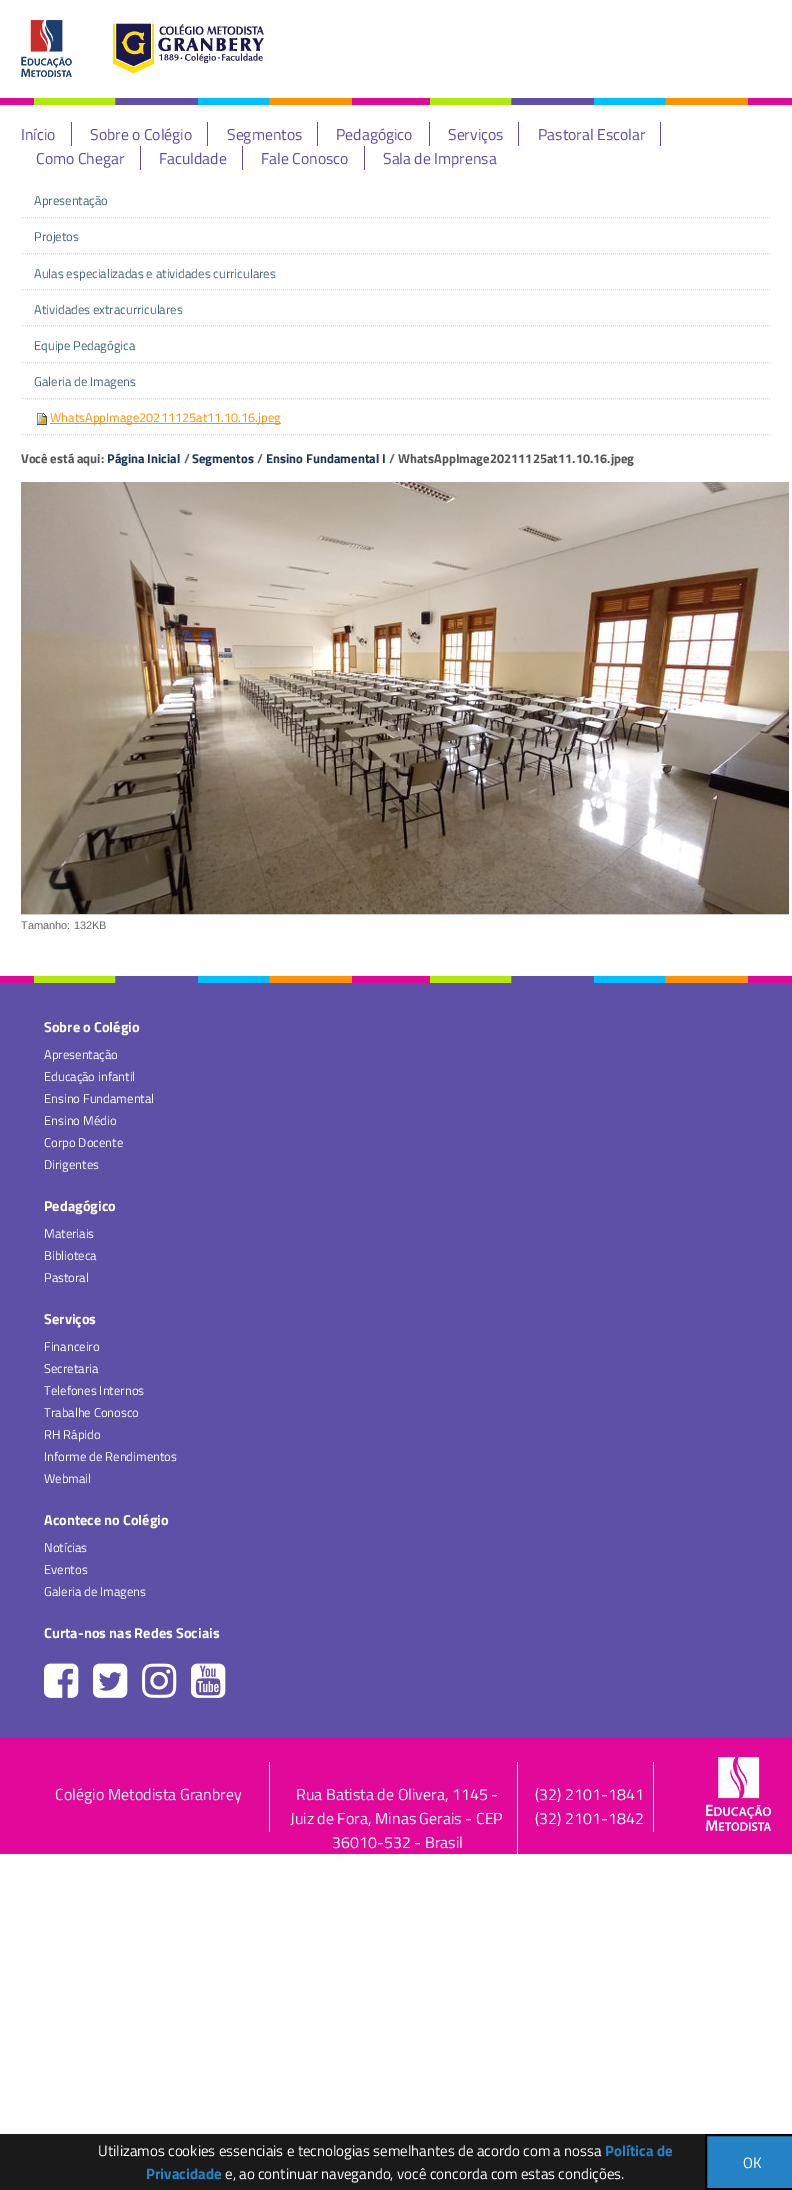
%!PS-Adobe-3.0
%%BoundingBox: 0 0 792 2190
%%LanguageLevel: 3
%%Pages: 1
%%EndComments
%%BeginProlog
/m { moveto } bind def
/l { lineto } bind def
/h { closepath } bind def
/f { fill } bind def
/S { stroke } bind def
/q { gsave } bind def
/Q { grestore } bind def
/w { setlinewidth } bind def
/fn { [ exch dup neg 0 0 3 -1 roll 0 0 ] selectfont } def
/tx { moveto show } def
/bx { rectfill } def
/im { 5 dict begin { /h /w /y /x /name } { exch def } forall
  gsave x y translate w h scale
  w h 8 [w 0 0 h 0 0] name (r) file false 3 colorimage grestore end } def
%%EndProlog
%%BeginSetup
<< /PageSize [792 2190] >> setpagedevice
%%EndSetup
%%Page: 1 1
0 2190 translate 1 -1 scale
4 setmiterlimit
1 setgray
0 0 792 2190 bx
(image0.raw) 0 98 792 7 im
(image1.raw) 21 20 243 57 im
0.365 0.314 0.651 setrgbcolor
71 122 1 24 bx
/TitilliumWeb-Regular 15.75 fn
(Início) 21 140 tx
207 122 1 24 bx
(Sobre o Colégio) 90 140 tx
317 122 1 24 bx
(Segmentos) 227 140 tx
429 122 1 24 bx
(Pedagógico) 336 140 tx
518 122 1 24 bx
(Serviços) 448 140 tx
660 122 1 24 bx
(Pastoral Escolar) 538 140 tx
140 146 1 24 bx
(Como Chegar) 36 164 tx
242 146 1 24 bx
(Faculdade) 159 164 tx
364 146 1 24 bx
(Fale Conosco) 261 164 tx
(Sala de Imprensa) 383 164 tx
0.867 setgray
[1 1] 0 setdash
21 217.5 m 771 217.5 l S
/TitilliumWeb-Regular 12.75 fn
0.263 0.412 0.463 setrgbcolor
(Apresentação) 34 205 tx
0.867 setgray
21 253.5 m 771 253.5 l S
0.263 0.412 0.463 setrgbcolor
(Projetos) 34 241 tx
0.867 setgray
21 289.5 m 771 289.5 l S
0.263 0.412 0.463 setrgbcolor
(Aulas especializadas e atividades curriculares) 34 278 tx
0.867 setgray
21 325.5 m 771 325.5 l S
0.263 0.412 0.463 setrgbcolor
(Atividades extracurriculares) 34 314 tx
0.867 setgray
21 362.5 m 771 362.5 l S
0.263 0.412 0.463 setrgbcolor
(Equipe Pedagógica) 34 350 tx
0.867 setgray
21 398.5 m 771 398.5 l S
0.263 0.412 0.463 setrgbcolor
(Galeria de Imagens) 34 386 tx
0.867 setgray
21 434.5 m 771 434.5 l S
(image2.raw) 37 413 10 12 im
1 0.573 0 setrgbcolor
50 423 231 1 bx
(WhatsAppImage20211125at11.10.16.jpeg) 50 422 tx
/TitilliumWeb-Bold 12.75 fn
0.333 setgray
(Você está aqui:) 21 463 tx
0.11 0.216 0.349 setrgbcolor
(Página Inicial) 107 463 tx
0.4 setgray
(/) 184 463 tx
0.11 0.216 0.349 setrgbcolor
(Segmentos) 192 463 tx
0.4 setgray
(/) 257 463 tx
0.11 0.216 0.349 setrgbcolor
(Ensino Fundamental I) 266 463 tx
0.4 setgray
(/) 389 463 tx
0.333 setgray
(WhatsAppImage20211125at11.10.16.jpeg) 398 463 tx
0.8 setgray
21 914 768 1 bx
(image3.raw) 21 482 768 432 im
/LiberationSans-Regular 11 fn
0.4 setgray
(Tamanho: 132KB) 21 929 tx
0.365 0.314 0.651 setrgbcolor
0 983 792 754 bx
(image0.raw) 0 976 792 7 im
/TitilliumWeb-Bold 14.4 fn
1 setgray
(Sobre o Colégio) 44 1032 tx
/TitilliumWeb-Regular 12.75 fn
(Apresentação) 44 1059 tx
(Educação infantil) 44 1081 tx
(Ensino Fundamental) 44 1103 tx
(Ensino Médio) 44 1125 tx
(Corpo Docente) 44 1147 tx
(Dirigentes) 44 1169 tx
/TitilliumWeb-Bold 14.4 fn
(Pedagógico) 44 1211 tx
/TitilliumWeb-Regular 12.75 fn
(Materiais) 44 1238 tx
(Biblioteca) 44 1260 tx
(Pastoral) 44 1282 tx
/TitilliumWeb-Bold 14.4 fn
(Serviços) 44 1324 tx
/TitilliumWeb-Regular 12.75 fn
(Financeiro) 44 1351 tx
(Secretaria) 44 1373 tx
(Telefones Internos) 44 1395 tx
(Trabalhe Conosco) 44 1417 tx
(RH Rápido) 44 1439 tx
(Informe de Rendimentos) 44 1461 tx
(Webmail) 44 1483 tx
/TitilliumWeb-Bold 14.4 fn
(Acontece no Colégio) 44 1525 tx
/TitilliumWeb-Regular 12.75 fn
(Notícias) 44 1552 tx
(Eventos) 44 1574 tx
(Galeria de Imagens) 44 1596 tx
/TitilliumWeb-Bold 14.4 fn
(Curta-nos nas Redes Sociais) 44 1638 tx
(image4.raw) 44 1663 35 35 im
(image5.raw) 93 1663 35 35 im
(image6.raw) 142 1663 35 35 im
(image7.raw) 191 1663 35 35 im
0.886 0.031 0.6 setrgbcolor
0 1737 792 117 bx
1 setgray
269 1762 1 70 bx
/TitilliumWeb-Regular 16 fn
(Colégio Metodista Granbrey) 55 1800 tx
517 1762 1 92 bx
(Rua Batista de Olivera, 1145 -) 296 1800 tx
(Juiz de Fora, Minas Gerais - CEP) 290 1824 tx
(36010-532 - Brasil) 332 1848 tx
653 1762 1 70 bx
(\(32\) 2101-1841) 535 1800 tx
(\(32\) 2101-1842) 535 1824 tx
(image8.raw) 706 1757 65 74 im
0.102 setgray
0 2134 705 56 bx
/TitilliumWeb-Regular 15 fn
1 setgray
(Utilizamos cookies essenciais e tecnologias semelhantes de acordo com a nossa) 98 2156 tx
/TitilliumWeb-Bold 15 fn
0.137 0.514 0.773 setrgbcolor
(Política de) 605 2156 tx
(Privacidade) 146 2179 tx
/TitilliumWeb-Regular 15 fn
1 setgray
(e, ao continuar navegando, você concorda com estas condições.) 225 2179 tx
0.137 0.514 0.773 setrgbcolor
706 2135 m 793 2135 l 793 2189 l 706 2189 l h q f Q
0 setgray
2 w
[] 0 setdash
S
1 setgray
(OK) 743 2168 tx
showpage
%%EOF
